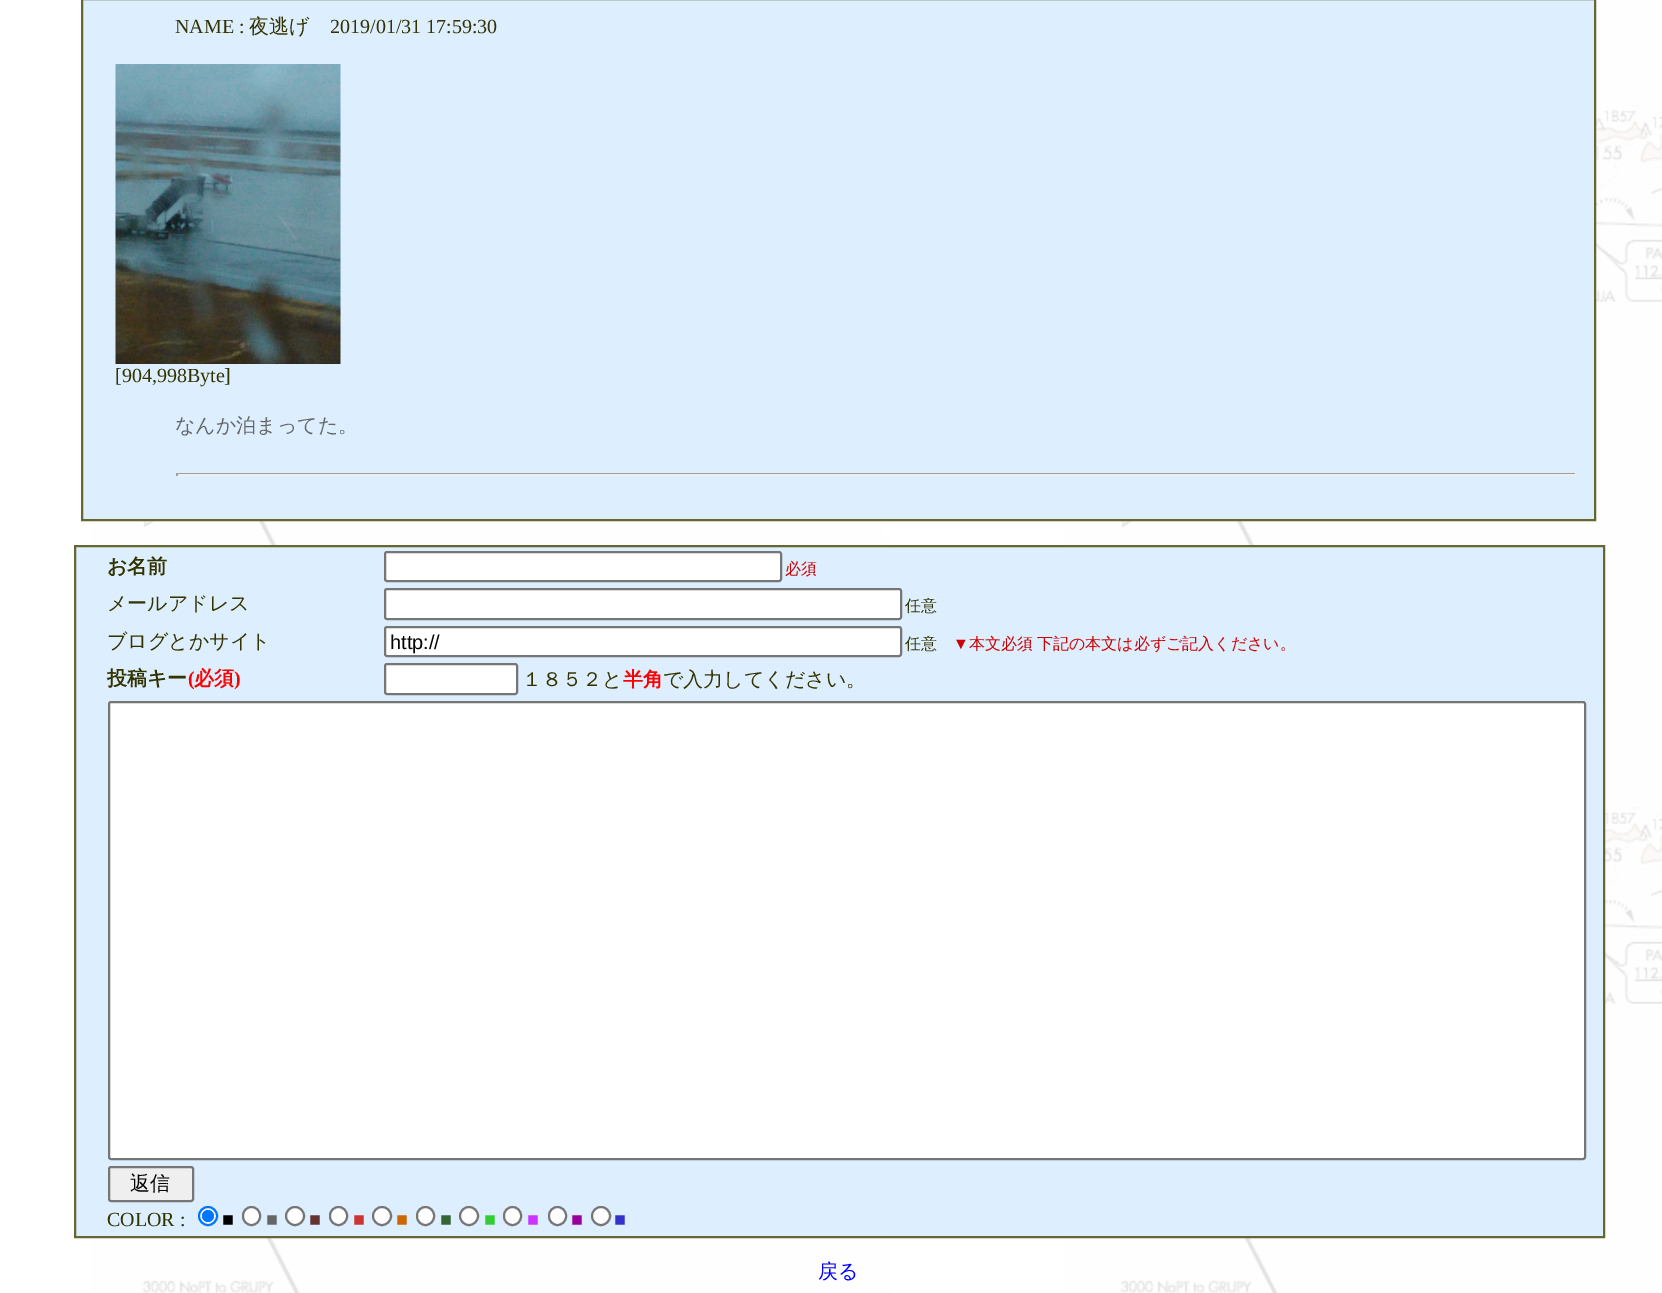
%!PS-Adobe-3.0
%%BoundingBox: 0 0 1662 1293
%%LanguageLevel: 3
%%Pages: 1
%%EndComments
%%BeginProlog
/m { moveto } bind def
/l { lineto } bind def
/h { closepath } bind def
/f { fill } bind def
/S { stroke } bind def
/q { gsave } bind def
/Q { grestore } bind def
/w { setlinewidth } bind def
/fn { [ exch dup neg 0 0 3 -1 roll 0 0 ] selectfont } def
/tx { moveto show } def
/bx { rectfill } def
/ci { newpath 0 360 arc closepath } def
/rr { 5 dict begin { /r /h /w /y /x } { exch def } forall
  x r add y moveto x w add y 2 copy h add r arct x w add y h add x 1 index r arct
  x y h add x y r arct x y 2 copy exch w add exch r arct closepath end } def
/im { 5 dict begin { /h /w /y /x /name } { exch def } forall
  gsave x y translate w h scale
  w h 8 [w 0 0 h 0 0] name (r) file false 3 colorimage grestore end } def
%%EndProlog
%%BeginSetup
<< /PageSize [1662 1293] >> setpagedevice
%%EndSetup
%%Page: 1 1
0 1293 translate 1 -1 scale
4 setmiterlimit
1 setgray
0 0 1662 1293 bx
(image0.raw) 90 0 1572 1293 im
0.867 0.933 1 setrgbcolor
82 -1 m 1595 -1 l 1595 520 l 82 520 l h q f Q
0.4 0.4 0.2 setrgbcolor
2 w
S
/LiberationSerif-Regular 20 fn
0.2 0.2 0 setrgbcolor
(NAME :) 175 33 tx
/WenQuanYiZenHei-Medium 20 fn
(夜逃げ) 249 33 tx
/LiberationSerif-Regular 20 fn
(2019/01/31 17:59:30) 330 33 tx
(image1.raw) 115 64 226 300 im
([904,998Byte]) 115 382 tx
/WenQuanYiZenHei-Medium 20 fn
0.4 setgray
(なんか泊まってた。) 175 432 tx
0.624 setgray
176 473 1401 1 bx
0.933 setgray
1575 473 2 3 bx
176 474 1401 2 bx
0.624 setgray
176 473 2 3 bx
0.867 0.933 1 setrgbcolor
75 546 m 1604 546 l 1604 1237 l 75 1237 l h q f Q
0.4 0.4 0.2 setrgbcolor
S
/WenQuanYiZenHei-Bold 20 fn
0.2 0.2 0 setrgbcolor
(お名前) 107 573 tx
1 setgray
385 552 396 29 2 rr q f Q
0.463 setgray
S
/WenQuanYiZenHei-Medium 16 fn
0.8 0 0 setrgbcolor
(必須) 785 574 tx
/WenQuanYiZenHei-Medium 20 fn
0.2 0.2 0 setrgbcolor
(メールアドレス) 107 610 tx
1 setgray
385 589 516 30 2 rr q f Q
0.463 setgray
S
/WenQuanYiZenHei-Medium 16 fn
0.2 0.2 0 setrgbcolor
(任意) 905 611 tx
/WenQuanYiZenHei-Medium 20 fn
(ブログとかサイト) 107 648 tx
1 setgray
385 627 516 29 2 rr q f Q
0.463 setgray
S
/LiberationSans-Regular 20 fn
0 setgray
(http://) 390 649 tx
/WenQuanYiZenHei-Medium 16 fn
0.2 0.2 0 setrgbcolor
(任意) 905 649 tx
/LiberationSerif-Regular 16 fn
0.8 0 0 setrgbcolor
(▼) 953 649 tx
/WenQuanYiZenHei-Medium 16 fn
969 649 m -1 0 32 (本文必須 下記の本文は必ずご記入ください。) widthshow
/WenQuanYiZenHei-Bold 20 fn
0.2 0.2 0 setrgbcolor
(投稿キー) 107 685 tx
/LiberationSerif-Bold 20 fn
1 0 0 setrgbcolor
(\() 188 685 tx
/WenQuanYiZenHei-Bold 20 fn
(必須) 194 685 tx
/LiberationSerif-Bold 20 fn
(\)) 234 685 tx
1 setgray
385 664 132 30 2 rr q f Q
0.463 setgray
S
/WenQuanYiZenHei-Medium 20 fn
0.2 0.2 0 setrgbcolor
(１８５２と) 522 686 tx
/WenQuanYiZenHei-Bold 20 fn
1 0 0 setrgbcolor
(半角) 623 686 tx
/WenQuanYiZenHei-Medium 20 fn
0.2 0.2 0 setrgbcolor
(で入力してください。) 663 686 tx
1 setgray
109 702 1476 457 2 rr q f Q
0.463 setgray
S
0.937 setgray
109 1167 84 34 2 rr q f Q
0.463 setgray
S
0 setgray
(返信) 130 1190 tx
/LiberationSerif-Regular 20 fn
0.2 0.2 0 setrgbcolor
(COLOR :) 107 1226 tx
1 setgray
208 1216 9 ci q f Q
0 0.459 1 setrgbcolor
S
208 1216 6 ci f
0 setgray
(■) 222 1226 tx
1 setgray
243 1207 17 18 8.5 rr q f Q
0.463 setgray
S
0.4 setgray
(■) 266 1226 tx
1 setgray
295 1216 9 ci q f Q
0.463 setgray
S
0.4 0.2 0.2 setrgbcolor
(■) 309 1226 tx
1 setgray
330 1207 17 18 8.5 rr q f Q
0.463 setgray
S
0.8 0.2 0.2 setrgbcolor
(■) 353 1226 tx
1 setgray
382 1216 9 ci q f Q
0.463 setgray
S
0.8 0.4 0 setrgbcolor
(■) 396 1226 tx
1 setgray
417 1207 17 18 8.5 rr q f Q
0.463 setgray
S
0.2 0.4 0.2 setrgbcolor
(■) 440 1226 tx
1 setgray
469 1216 9 ci q f Q
0.463 setgray
S
0.2 0.8 0.2 setrgbcolor
(■) 484 1226 tx
1 setgray
504 1207 17 18 8.5 rr q f Q
0.463 setgray
S
0.8 0.2 1 setrgbcolor
(■) 527 1226 tx
1 setgray
549 1207 17 18 8.5 rr q f Q
0.463 setgray
S
0.6 0 0.6 setrgbcolor
(■) 571 1226 tx
1 setgray
601 1216 9 ci q f Q
0.463 setgray
S
0.2 0.2 0.8 setrgbcolor
(■) 614 1226 tx
/WenQuanYiZenHei-Medium 20 fn
0 0 1 setrgbcolor
(戻る) 818 1278 tx
showpage
%%EOF
